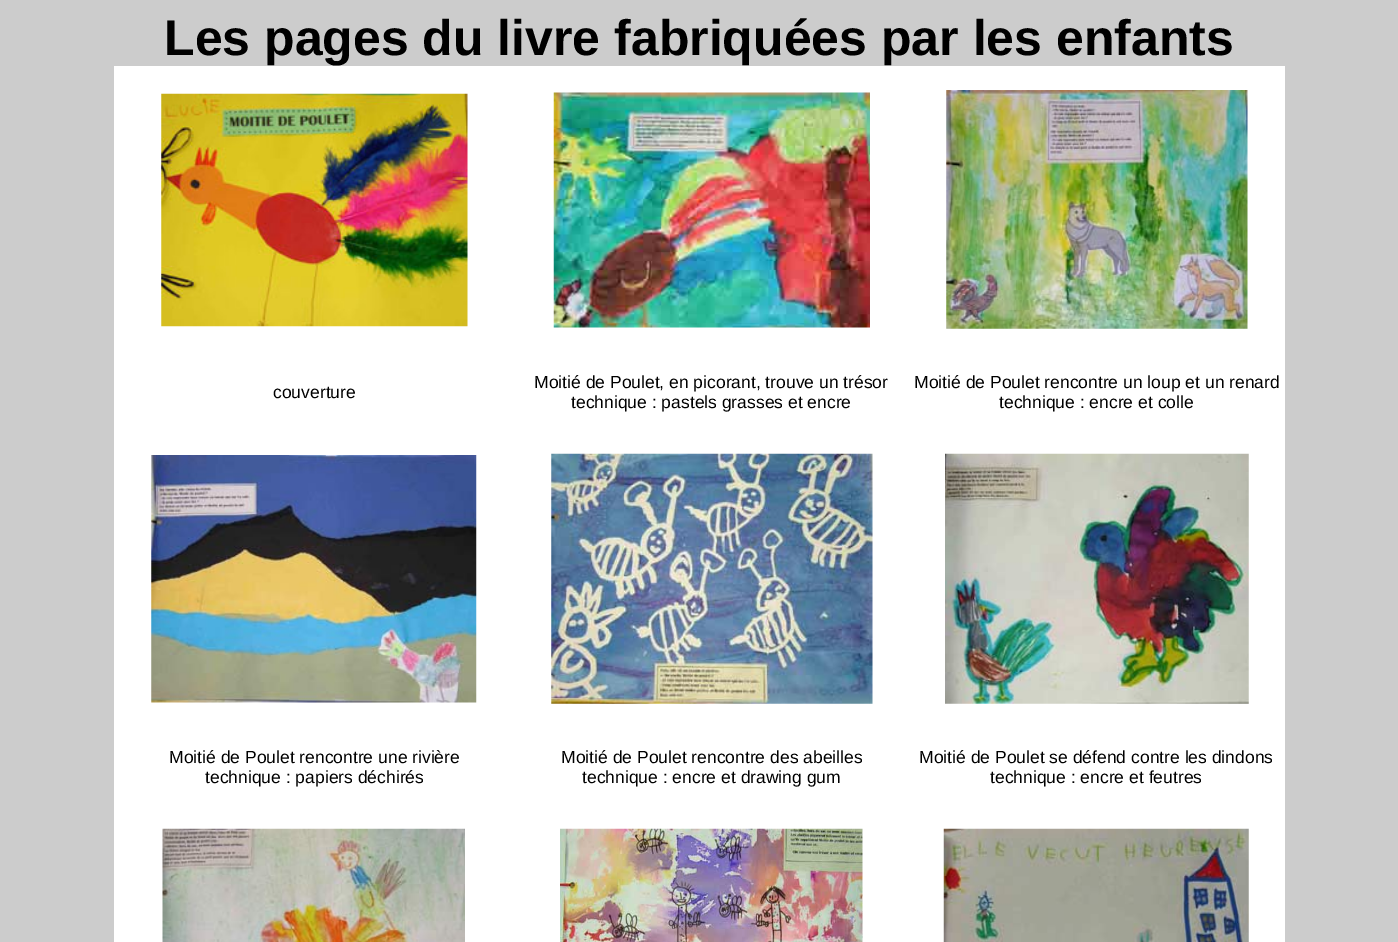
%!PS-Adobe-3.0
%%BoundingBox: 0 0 1398 942
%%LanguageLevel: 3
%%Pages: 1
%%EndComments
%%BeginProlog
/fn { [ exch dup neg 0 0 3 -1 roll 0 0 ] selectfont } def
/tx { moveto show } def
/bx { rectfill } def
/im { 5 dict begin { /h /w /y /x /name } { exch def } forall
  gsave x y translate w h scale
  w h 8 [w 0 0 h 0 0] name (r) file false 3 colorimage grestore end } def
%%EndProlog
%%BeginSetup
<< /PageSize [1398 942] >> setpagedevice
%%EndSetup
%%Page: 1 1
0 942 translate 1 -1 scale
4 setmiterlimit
0.8 setgray
0 0 1398 942 bx
/LiberationSans-Bold 50 fn
0 setgray
(Les pages du livre fabriquées par les enfants) 164 55 tx
1 setgray
114 66 1171 876 bx
(image0.raw) 161 93 307 234 im
(image1.raw) 553 92 317 236 im
(image2.raw) 946 90 302 239 im
/LiberationSans-Regular 17.5 fn
0 setgray
(couverture) 273 398 tx
(Moitié de Poulet, en picorant, trouve un trésor) 534 388 tx
(technique : pastels grasses et encre) 571 408 tx
(Moitié de Poulet rencontre un loup et un renard) 914 388 tx
(technique : encre et colle) 999 408 tx
(image3.raw) 151 455 326 248 im
(image4.raw) 551 453 322 251 im
(image5.raw) 945 453 304 251 im
(Moitié de Poulet rencontre une rivière) 169 763 tx
(technique : papiers déchirés) 205 783 tx
(Moitié de Poulet rencontre des abeilles) 561 763 tx
(technique : encre et drawing gum) 582 783 tx
(Moitié de Poulet se défend contre les dindons) 919 763 tx
(technique : encre et feutres) 990 783 tx
(image6.raw) 162 828 303 114 im
(image7.raw) 560 828 303 114 im
(image8.raw) 943 828 306 114 im
showpage
%%EOF
